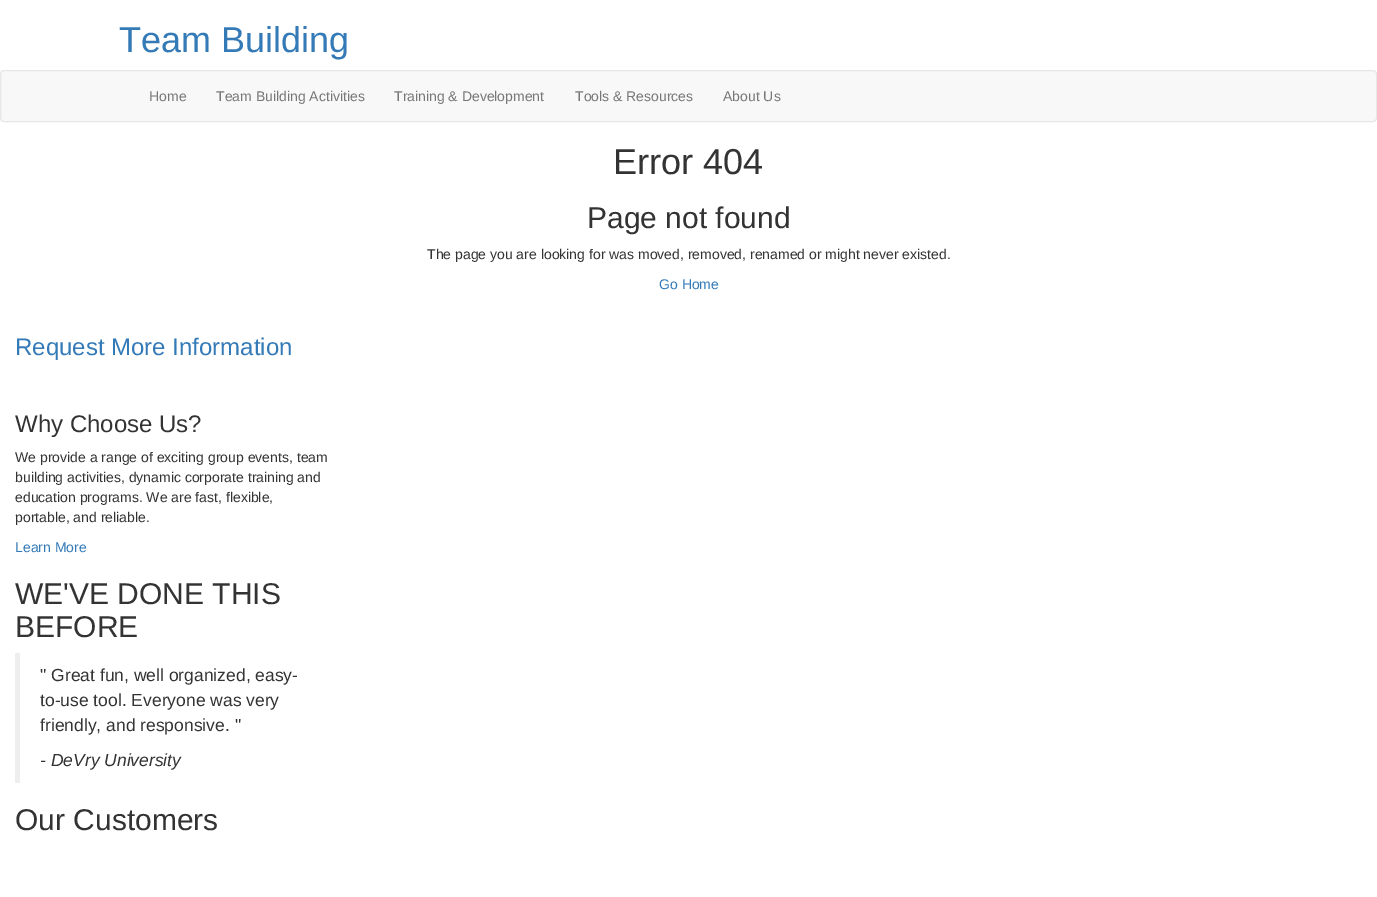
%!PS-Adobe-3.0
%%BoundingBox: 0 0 1377 897
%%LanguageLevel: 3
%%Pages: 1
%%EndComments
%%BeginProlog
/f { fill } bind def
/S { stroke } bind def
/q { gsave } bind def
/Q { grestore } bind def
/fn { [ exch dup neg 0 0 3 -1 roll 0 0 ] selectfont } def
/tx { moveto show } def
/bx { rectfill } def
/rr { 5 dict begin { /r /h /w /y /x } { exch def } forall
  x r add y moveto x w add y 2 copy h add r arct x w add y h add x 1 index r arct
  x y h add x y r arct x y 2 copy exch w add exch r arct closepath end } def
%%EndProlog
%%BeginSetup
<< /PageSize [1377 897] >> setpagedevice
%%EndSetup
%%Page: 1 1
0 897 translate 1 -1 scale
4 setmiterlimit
1 setgray
0 0 1377 897 bx
/LiberationSans-Regular 36 fn
0.2 0.478 0.718 setrgbcolor
(Team Building) 119 52 tx
0.973 setgray
0.5 70.5 1376 51 3.5 rr q f Q
0.906 setgray
S
/LiberationSans-Regular 14 fn
0.467 setgray
(Home) 149 101 tx
(Team Building Activities) 216 101 tx
(Training & Development) 394 101 tx
(Tools & Resources) 575 101 tx
(About Us) 723 101 tx
/LiberationSans-Regular 36 fn
0.2 setgray
(Error 404) 613 174 tx
/LiberationSans-Regular 30 fn
(Page not found) 587 228 tx
/LiberationSans-Regular 14 fn
(The page you are looking for was moved, removed, renamed or might never existed.) 427 259 tx
0.2 0.478 0.718 setrgbcolor
(Go Home) 659 289 tx
/LiberationSans-Regular 24 fn
(Request More Information) 15 355 tx
0.2 setgray
(Why Choose Us?) 15 432 tx
/LiberationSans-Regular 14 fn
(We provide a range of exciting group events, team) 15 462 tx
(building activities, dynamic corporate training and) 15 482 tx
(education programs. We are fast, flexible,) 15 502 tx
(portable, and reliable.) 15 522 tx
0.2 0.478 0.718 setrgbcolor
(Learn More) 15 552 tx
/LiberationSans-Regular 30 fn
0.2 setgray
(WE'VE DONE THIS) 15 604 tx
(BEFORE) 15 637 tx
0.933 setgray
15 653 5 130 bx
/LiberationSans-Regular 17.5 fn
0.2 setgray
(" Great fun, well organized, easy-) 40 681 tx
(to-use tool. Everyone was very) 40 706 tx
(friendly, and responsive. ") 40 731 tx
/LiberationSans-Italic 17.5 fn
(- DeVry University) 40 766 tx
/LiberationSans-Regular 30 fn
(Our Customers) 15 830 tx
showpage
%%EOF
